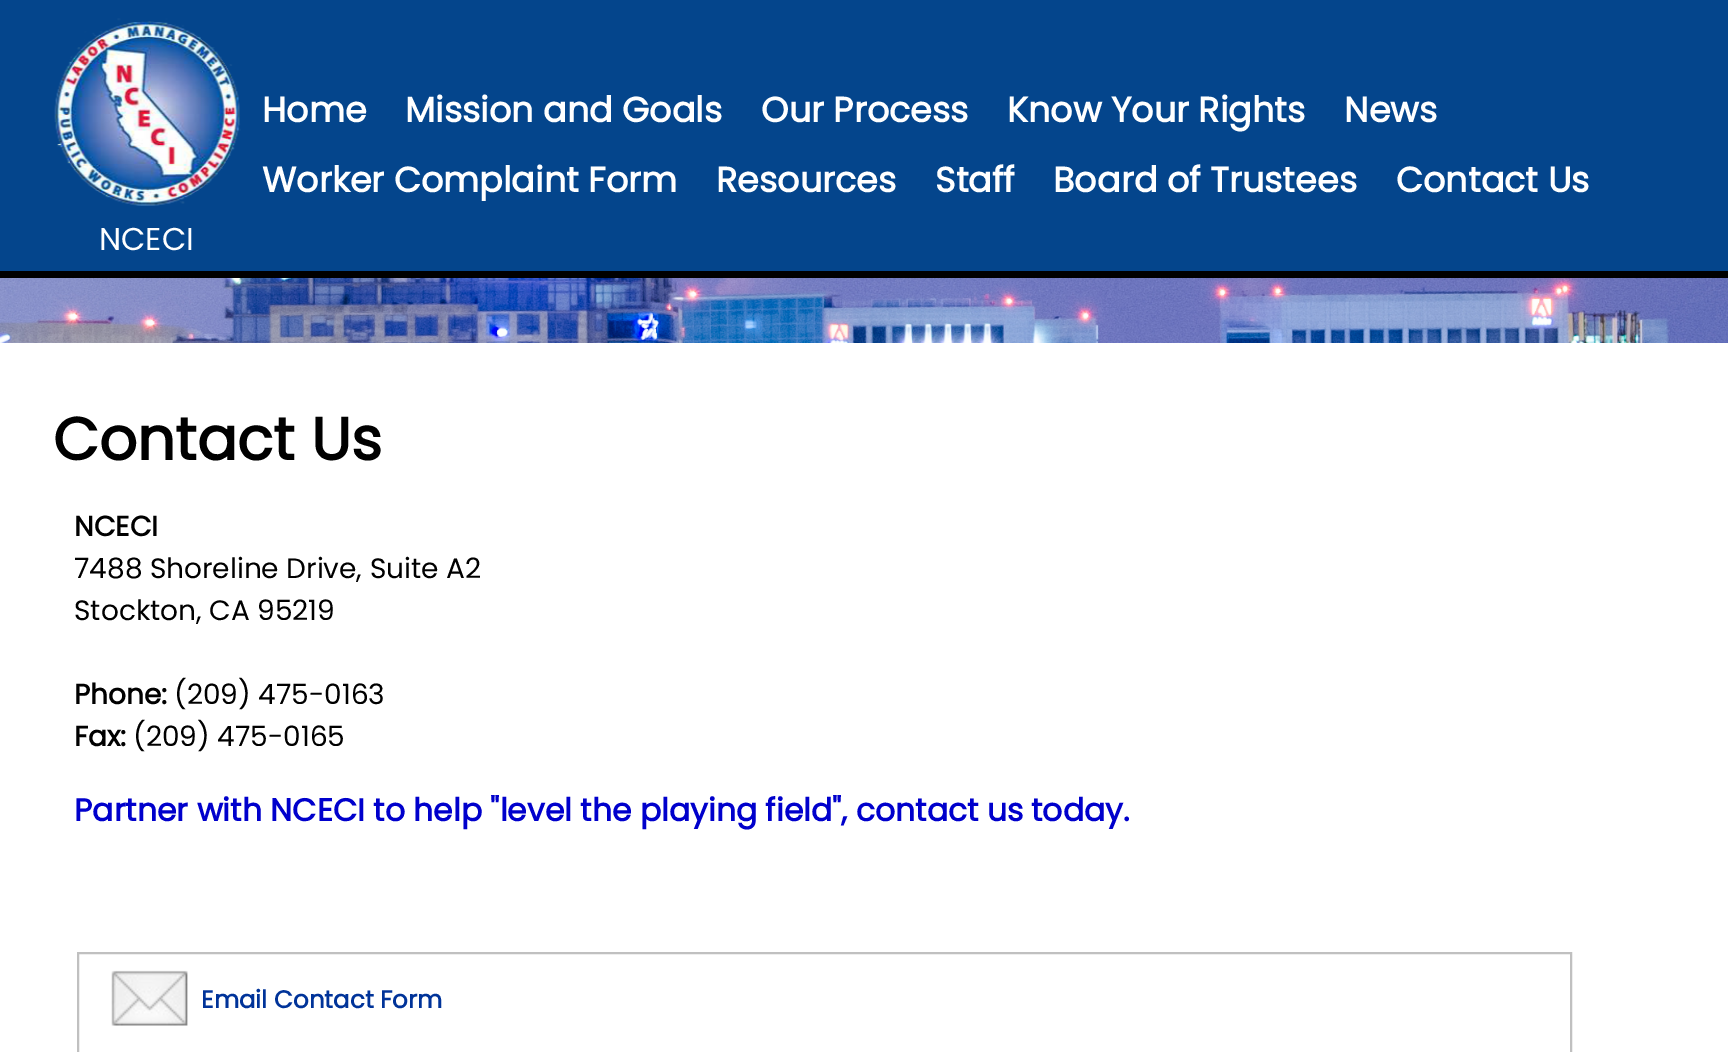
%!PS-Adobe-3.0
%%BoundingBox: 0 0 1728 1052
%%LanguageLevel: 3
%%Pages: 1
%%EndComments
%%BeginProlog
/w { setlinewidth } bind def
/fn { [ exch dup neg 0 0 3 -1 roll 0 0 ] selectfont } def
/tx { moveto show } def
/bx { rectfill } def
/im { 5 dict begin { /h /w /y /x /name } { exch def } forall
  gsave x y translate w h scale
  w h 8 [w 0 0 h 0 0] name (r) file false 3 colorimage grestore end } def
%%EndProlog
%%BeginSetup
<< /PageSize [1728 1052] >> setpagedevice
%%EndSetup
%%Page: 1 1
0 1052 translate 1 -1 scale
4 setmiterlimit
1 setgray
0 0 1728 1052 bx
0.016 0.271 0.549 setrgbcolor
0 0 1728 271 bx
0 setgray
0 271 1728 7 bx
/Poppins-Bold 35 fn
1 setgray
(Home) 262 122 tx
(Mission and Goals) 405 122 tx
(Our Process) 761 122 tx
(Know Your Rights) 1007 122 tx
(News) 1344 122 tx
(Worker Complaint Form) 262 192 tx
(Resources) 716 192 tx
(Staff) 935 192 tx
(Board of Trustees) 1053 192 tx
(Contact Us) 1396 192 tx
(image0.raw) 54 18 187 188 im
/Poppins-Regular 31.5 fn
(NCECI) 99 250 tx
(image1.raw) 0 278 1728 65 im
/Poppins-Bold 59.5 fn
0 setgray
(Contact Us) 53 460 tx
/Poppins-Bold 28 fn
(NCECI) 74 536 tx
/Poppins-Regular 28 fn
(7488 Shoreline Drive, Suite A2) 74 578 tx
(Stockton, CA 95219) 74 620 tx
/Poppins-Bold 28 fn
(Phone:) 74 704 tx
/Poppins-Regular 28 fn
(\(209\) 475-0163) 174 704 tx
/Poppins-Bold 28 fn
(Fax:) 74 746 tx
/Poppins-Regular 28 fn
(\(209\) 475-0165) 133 746 tx
/Poppins-Bold 31.5 fn
0 0 0.8 setrgbcolor
(Partner with NCECI to help "level the playing field", contact us) 74 821 tx
(today.) 1031 821 tx
0.753 setgray
2 w
78 953 1493 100 rectstroke
(image2.raw) 111 970 77 56 im
/Poppins-Bold 24.5 fn
0 0.2 0.6 setrgbcolor
(Email Contact Form) 201 1008 tx
showpage
%%EOF
